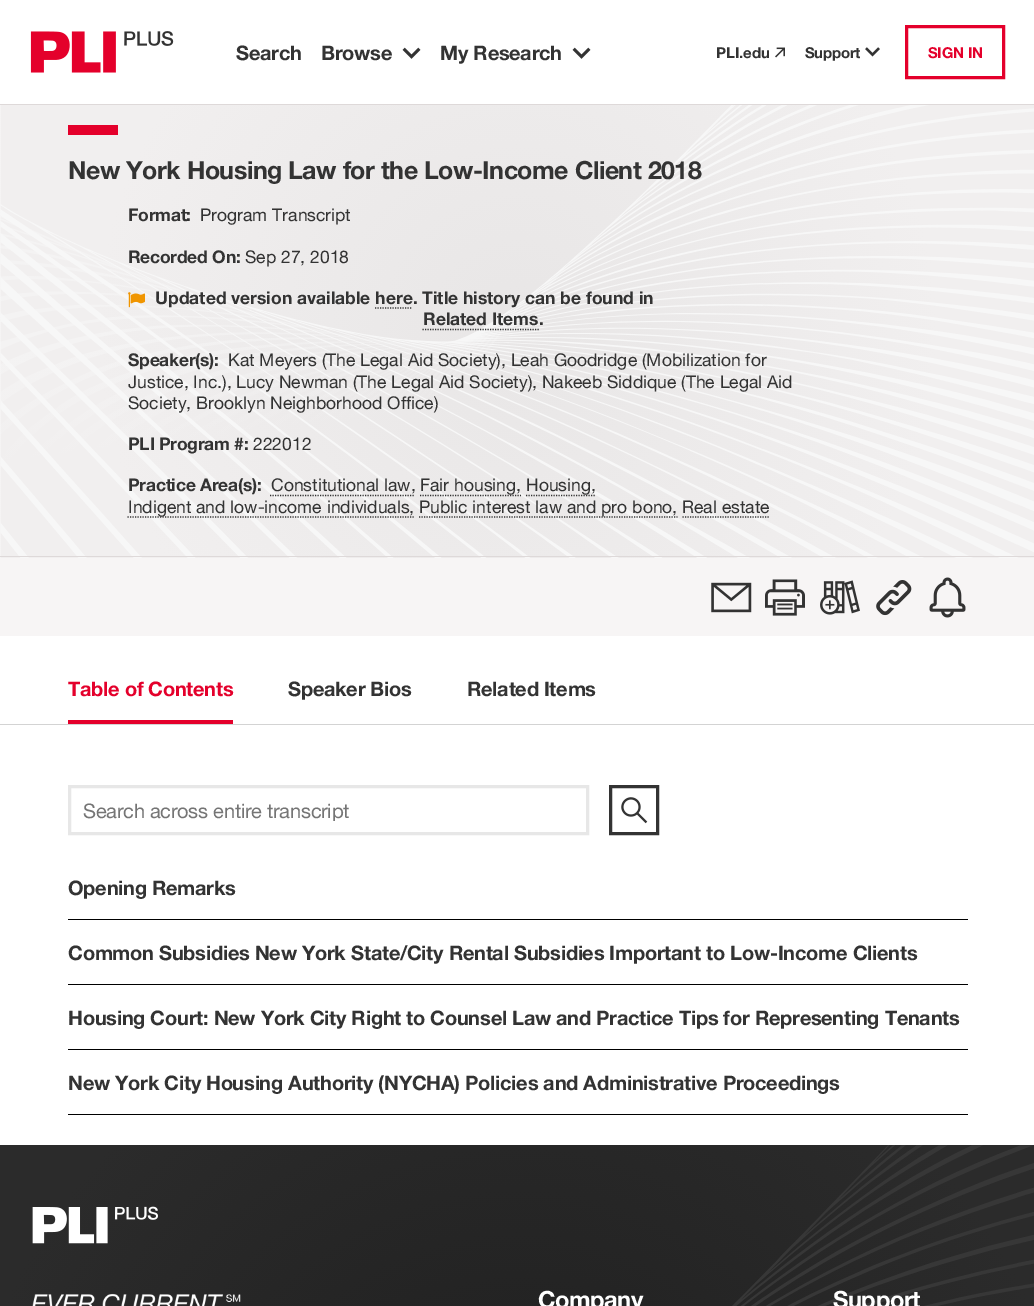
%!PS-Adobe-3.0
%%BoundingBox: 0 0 1034 1306
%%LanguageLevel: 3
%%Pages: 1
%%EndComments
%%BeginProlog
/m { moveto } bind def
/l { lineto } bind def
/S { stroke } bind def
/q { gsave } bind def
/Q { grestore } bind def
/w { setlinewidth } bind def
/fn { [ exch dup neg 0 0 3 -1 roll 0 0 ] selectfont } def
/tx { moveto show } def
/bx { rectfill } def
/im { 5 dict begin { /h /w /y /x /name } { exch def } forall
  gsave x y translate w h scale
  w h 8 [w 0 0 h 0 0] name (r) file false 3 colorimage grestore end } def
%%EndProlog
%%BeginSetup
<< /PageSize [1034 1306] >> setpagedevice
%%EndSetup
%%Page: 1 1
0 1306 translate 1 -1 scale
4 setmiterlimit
1 setgray
0 0 1034 1306 bx
0.871 0.851 0.851 setrgbcolor
0 104 1034 1 bx
(image0.raw) 30 31 144 42 im
/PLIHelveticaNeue-Bold 20 fn
0.2 setgray
236 60 m -0.25 0 (Search) ashow
321 60 m -0.25 0 (Browse) ashow
(image1.raw) 402 47 19 12 im
440 60 m -0.25 0 (My Research) ashow
(image1.raw) 572 47 19 12 im
/PLIHelveticaNeue-Bold 15 fn
(PLI.edu) 716 58 tx
(image2.raw) 775 47 10 11 im
805 58 m -0.25 0 (Support) ashow
(image3.raw) 865 47 15 10 im
0.894 0 0.169 setrgbcolor
3 w
906.5 26.5 97 51 rectstroke
928 58 m -0.25 0 (SIGN IN) ashow
(image4.raw) 0 105 1034 453 im
0.871 0.851 0.851 setrgbcolor
0 556 1034 1 bx
0.894 0 0.169 setrgbcolor
68 125 50 10 bx
/PLIHelveticaNeue-Bold 25 fn
0.2 setgray
68 179 m -0.5 0 (New York Housing Law for the Low-Income Client 2018) ashow
/PLIHelveticaNeue-Bold 17.5 fn
128 221 m -0.25 0 (Format:) ashow
/PLIHelveticaNeue-Regular 17.5 fn
(Program Transcript) 200 221 tx
/PLIHelveticaNeue-Bold 17.5 fn
128 263 m -0.25 0 (Recorded On:) ashow
/PLIHelveticaNeue-Regular 17.5 fn
(Sep 27, 2018) 245 263 tx
(image5.raw) 128 292 17 16 im
/PLIHelveticaNeue-Bold 17.5 fn
(Updated version available here. Title history can be found in) 155 304 tx
1.2 w
[1.25 1.25] 0 setdash
375 308 m 412.5 308 l S
(Related Items.) 423 325 tx
422.5 329.5 m 539 329.5 l S
128 366 m -0.25 0 (Speaker\(s\):) ashow
/PLIHelveticaNeue-Regular 17.5 fn
(Kat Meyers \(The Legal Aid Society\), Leah Goodridge \(Mobilization for) 228 366 tx
(Justice, Inc.\), Lucy Newman \(The Legal Aid Society\), Nakeeb Siddique \(The Legal Aid) 128 388 tx
(Society, Brooklyn Neighborhood Office\)) 128 409 tx
/PLIHelveticaNeue-Bold 17.5 fn
128 450 m -0.25 0 (PLI Program #:) ashow
/PLIHelveticaNeue-Regular 17.5 fn
(222012) 253 450 tx
/PLIHelveticaNeue-Bold 17.5 fn
128 491 m -0.25 0 (Practice Area\(s\):) ashow
/PLIHelveticaNeue-Regular 17.5 fn
(Constitutional law,) 271 491 tx
270 495.5 m 415 495.5 l S
420 495.5 m 521 495.5 l S
(Fair housing,) 420 491 tx
526 495.5 m 596 495.5 l S
(Housing,) 526 491 tx
127.5 517 m 414 517 l S
(Indigent and low-income individuals,) 128 513 tx
419 517 m 677.5 517 l S
(Public interest law and pro bono, Real estate) 419 513 tx
682.5 517 m 770 517 l S
0.969 0.961 0.961 setrgbcolor
0 558 1034 78 bx
(image6.raw) 711 582 41 31 im
(image7.raw) 765 579 40 37 im
(image8.raw) 820 580 40 35 im
(image9.raw) 876 580 36 36 im
(image10.raw) 929 577 37 41 im
0.827 setgray
0 724 1034 1 bx
q
68 656 900 68 rectclip
/PLIHelveticaNeue-Bold 20 fn
0.894 0 0.169 setrgbcolor
68 696 m -0.25 0 (Table of Contents) ashow
Q
0.894 0 0.169 setrgbcolor
68 720 165 4 bx
/PLIHelveticaNeue-Bold 20 fn
0.2 setgray
288 696 m -0.25 0 (Speaker Bios) ashow
467 696 m -0.25 0 (Related Items) ashow
0.906 setgray
3 w
[] 0 setdash
69.5 786.5 518 47 rectstroke
q
83 798 472 23 rectclip
/PLIHelveticaNeue-Regular 20 fn
0.459 setgray
83 818 m -0.25 0 (Search across entire transcript) ashow
Q
0.2 setgray
610.5 786.5 47 47 rectstroke
(image11.raw) 621 797 27 27 im
0 setgray
68 919 900 1 bx
0.2 setgray
68 895 m -0.25 0 (Opening Remarks) ashow
0 setgray
68 984 900 1 bx
0.2 setgray
68 960 m -0.25 0 (Common Subsidies New York State/City Rental Subsidies Important to Low-Income Clients) ashow
0 setgray
68 1049 900 1 bx
0.2 setgray
68 1025 m -0.25 0 (Housing Court: New York City Right to Counsel Law and Practice Tips for Representing Tenants) ashow
0 setgray
68 1114 900 1 bx
0.2 setgray
68 1090 m -0.25 0 (New York City Housing Authority \(NYCHA\) Policies and Administrative Proceedings) ashow
(image12.raw) 0 1145 1034 161 im
(image13.raw) 32 1206 126 38 im
(image14.raw) 32 1293 209 13 im
/PLIHelveticaNeue-Bold 23.75 fn
1 setgray
538 1308 m -0.5 0 (Company) ashow
833 1308 m -0.5 0 (Support) ashow
showpage
%%EOF
